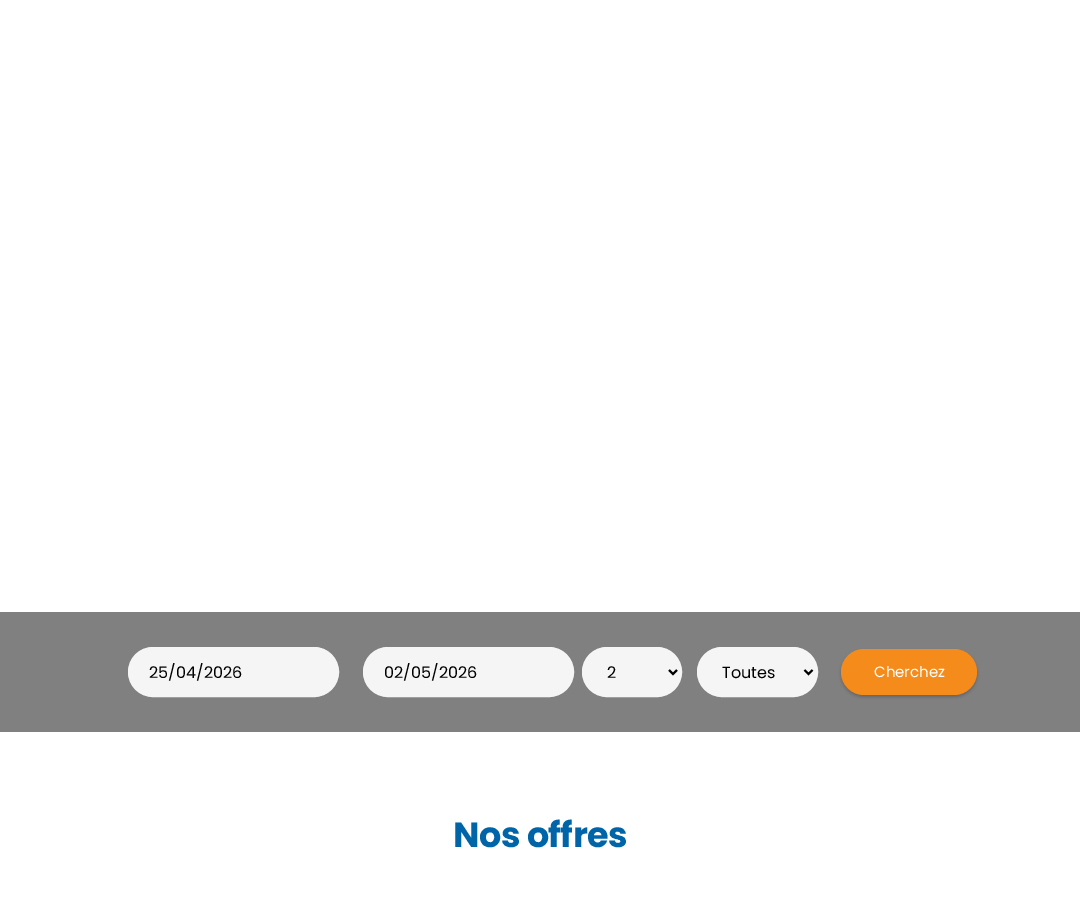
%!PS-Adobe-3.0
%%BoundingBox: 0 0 1080 915
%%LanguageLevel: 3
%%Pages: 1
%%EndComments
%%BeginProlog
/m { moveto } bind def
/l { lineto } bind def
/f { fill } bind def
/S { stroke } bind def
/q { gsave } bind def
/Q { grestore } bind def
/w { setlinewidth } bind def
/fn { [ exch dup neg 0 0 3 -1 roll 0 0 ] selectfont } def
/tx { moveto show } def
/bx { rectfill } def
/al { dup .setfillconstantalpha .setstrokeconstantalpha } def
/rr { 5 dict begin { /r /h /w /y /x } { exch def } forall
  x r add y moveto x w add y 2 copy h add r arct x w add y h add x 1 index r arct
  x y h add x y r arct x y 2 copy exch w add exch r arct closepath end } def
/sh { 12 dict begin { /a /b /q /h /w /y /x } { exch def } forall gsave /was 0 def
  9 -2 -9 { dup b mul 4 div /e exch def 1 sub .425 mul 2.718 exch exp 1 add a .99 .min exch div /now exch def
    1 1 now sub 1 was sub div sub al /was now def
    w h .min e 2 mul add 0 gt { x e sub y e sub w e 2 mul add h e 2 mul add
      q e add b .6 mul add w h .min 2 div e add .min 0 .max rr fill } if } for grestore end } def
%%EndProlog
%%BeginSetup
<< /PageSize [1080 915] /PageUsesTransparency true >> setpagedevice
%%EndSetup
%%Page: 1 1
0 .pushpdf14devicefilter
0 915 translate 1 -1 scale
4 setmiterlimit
1 setgray
0 0 1080 915 bx
0.502 setgray
0 612 1080 120 bx
0.961 setgray
128.5 647.5 210 49 24.5 rr q f Q
S
/Poppins-Regular 16 fn
0 setgray
(25/04/2026) 149 678 tx
0.961 setgray
363.5 647.5 210 49 24.5 rr q f Q
S
0 setgray
(02/05/2026) 384 678 tx
0.961 setgray
582.5 647.5 99 49 24.5 rr q f Q
S
0 setgray
2 w
669 670 m 673 674 l 677 670 l S
(2) 607 678 tx
0.961 setgray
697.5 647.5 120 49 24.5 rr q f Q
1 w
S
0 setgray
2 w
804.5 670 m 808.5 674 l 812.5 670 l S
(Toutes) 722 678 tx
0.4 setgray
841 651 136 46 23 1.5 1 sh
0.957 0.545 0.102 setrgbcolor
841 649 136 46 23 rr f
/Poppins-Regular 15 fn
1 setgray
(Cherchez) 874 677 tx
/Poppins-Bold 35 fn
0 0.396 0.659 setrgbcolor
453 847 m -0.5 0 (Nos offres) ashow
.poppdf14devicefilter showpage
%%EOF
